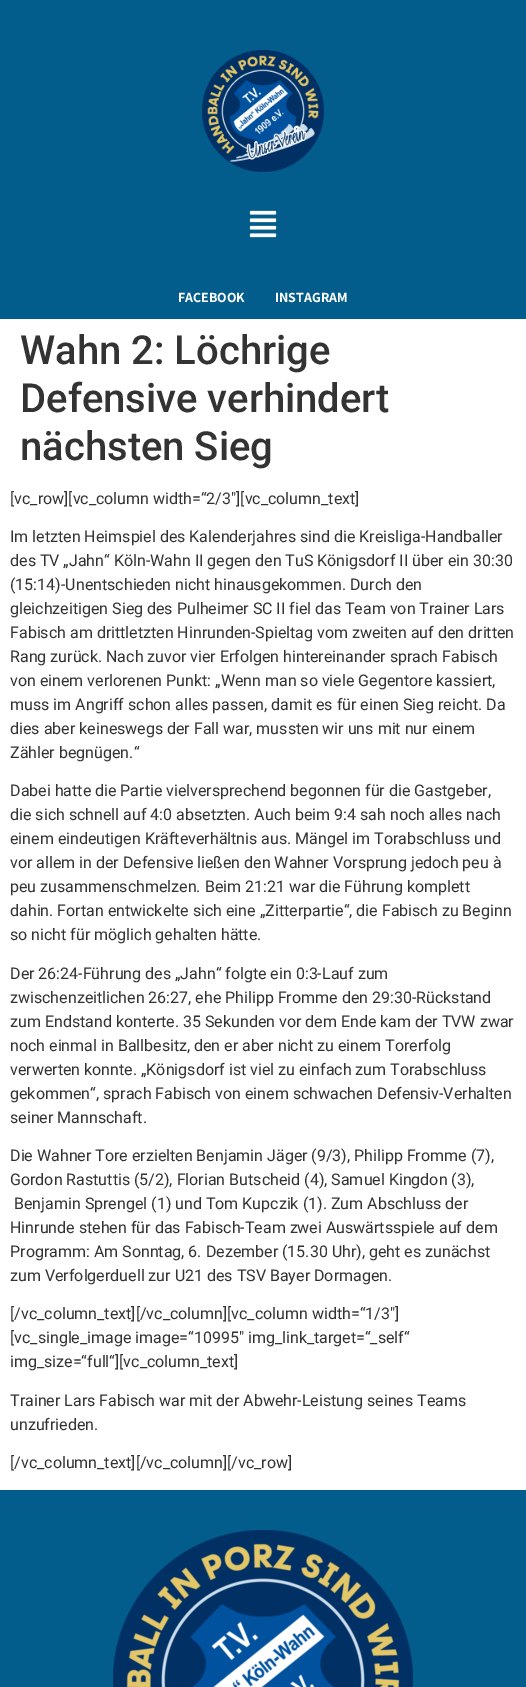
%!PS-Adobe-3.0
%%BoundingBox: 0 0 526 1687
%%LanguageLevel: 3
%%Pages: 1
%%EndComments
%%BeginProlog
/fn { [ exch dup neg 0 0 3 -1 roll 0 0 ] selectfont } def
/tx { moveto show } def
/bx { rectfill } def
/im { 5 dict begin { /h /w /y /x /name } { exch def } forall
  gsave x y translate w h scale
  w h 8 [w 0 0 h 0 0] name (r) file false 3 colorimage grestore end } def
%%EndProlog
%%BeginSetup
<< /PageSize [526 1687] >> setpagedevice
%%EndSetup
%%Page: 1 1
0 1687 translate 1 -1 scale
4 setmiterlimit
1 setgray
0 0 526 1687 bx
0.008 0.365 0.549 setrgbcolor
0 0 526 319 bx
(image0.raw) 202 50 122 122 im
(image1.raw) 249 210 28 28 im
/Assistant-Bold 14 fn
1 setgray
(FACEBOOK) 178 302 tx
(INSTAGRAM) 275 302 tx
/Roboto-Medium 40 fn
0.2 setgray
(Wahn 2: Löchrige) 20 364 tx
(Defensive verhindert) 20 412 tx
(nächsten Sieg) 20 460 tx
/Roboto-Regular 16 fn
([vc_row][vc_column width=“2/3″][vc_column_text]) 10 504 tx
(Im letzten Heimspiel des Kalenderjahres sind die Kreisliga-Handballer) 10 542 tx
(des TV „Jahn“ Köln-Wahn II gegen den TuS Königsdorf II über ein 30:30) 10 566 tx
(\(15:14\)-Unentschieden nicht hinausgekommen. Durch den) 10 590 tx
(gleichzeitigen Sieg des Pulheimer SC II fiel das Team von Trainer Lars) 10 614 tx
(Fabisch am drittletzten Hinrunden-Spieltag vom zweiten auf den dritten) 10 638 tx
(Rang zurück. Nach zuvor vier Erfolgen hintereinander sprach Fabisch) 10 662 tx
(von einem verlorenen Punkt: „Wenn man so viele Gegentore kassiert,) 10 686 tx
(muss im Angriff schon alles passen, damit es für einen Sieg reicht. Da) 10 710 tx
(dies aber keineswegs der Fall war, mussten wir uns mit nur einem) 10 734 tx
(Zähler begnügen.“) 10 758 tx
(Dabei hatte die Partie vielversprechend begonnen für die Gastgeber,) 10 796 tx
(die sich schnell auf 4:0 absetzten. Auch beim 9:4 sah noch alles nach) 10 820 tx
(einem eindeutigen Kräfteverhältnis aus. Mängel im Torabschluss und) 10 844 tx
(vor allem in der Defensive ließen den Wahner Vorsprung jedoch peu à) 10 868 tx
(peu zusammenschmelzen. Beim 21:21 war die Führung komplett) 10 892 tx
(dahin. Fortan entwickelte sich eine „Zitterpartie“, die Fabisch zu Beginn) 10 916 tx
(so nicht für möglich gehalten hätte.) 10 940 tx
(Der 26:24-Führung des „Jahn“ folgte ein 0:3-Lauf zum) 10 979 tx
(zwischenzeitlichen 26:27, ehe Philipp Fromme den 29:30-Rückstand) 10 1003 tx
(zum Endstand konterte. 35 Sekunden vor dem Ende kam der TVW zwar) 10 1027 tx
(noch einmal in Ballbesitz, den er aber nicht zu einem Torerfolg) 10 1051 tx
(verwerten konnte. „Königsdorf ist viel zu einfach zum Torabschluss) 10 1075 tx
(gekommen“, sprach Fabisch von einem schwachen Defensiv-Verhalten) 10 1099 tx
(seiner Mannschaft.) 10 1123 tx
(Die Wahner Tore erzielten Benjamin Jäger \(9/3\), Philipp Fromme \(7\),) 10 1161 tx
(Gordon Rastuttis \(5/2\), Florian Butscheid \(4\), Samuel Kingdon \(3\),) 10 1185 tx
(Benjamin Sprengel \(1\) und Tom Kupczik \(1\). Zum Abschluss der) 14 1209 tx
(Hinrunde stehen für das Fabisch-Team zwei Auswärtsspiele auf dem) 10 1233 tx
(Programm: Am Sonntag, 6. Dezember \(15.30 Uhr\), geht es zunächst) 10 1257 tx
(zum Verfolgerduell zur U21 des TSV Bayer Dormagen.) 10 1281 tx
([/vc_column_text][/vc_column][vc_column width=“1/3″]) 10 1319 tx
([vc_single_image image=“10995″ img_link_target=“_self“) 10 1343 tx
(img_size=“full“][vc_column_text]) 10 1367 tx
(Trainer Lars Fabisch war mit der Abwehr-Leistung seines Teams) 10 1406 tx
(unzufrieden.) 10 1430 tx
([/vc_column_text][/vc_column][/vc_row]) 10 1468 tx
0.008 0.365 0.549 setrgbcolor
0 1490 526 197 bx
(image2.raw) 113 1530 300 157 im
showpage
%%EOF
